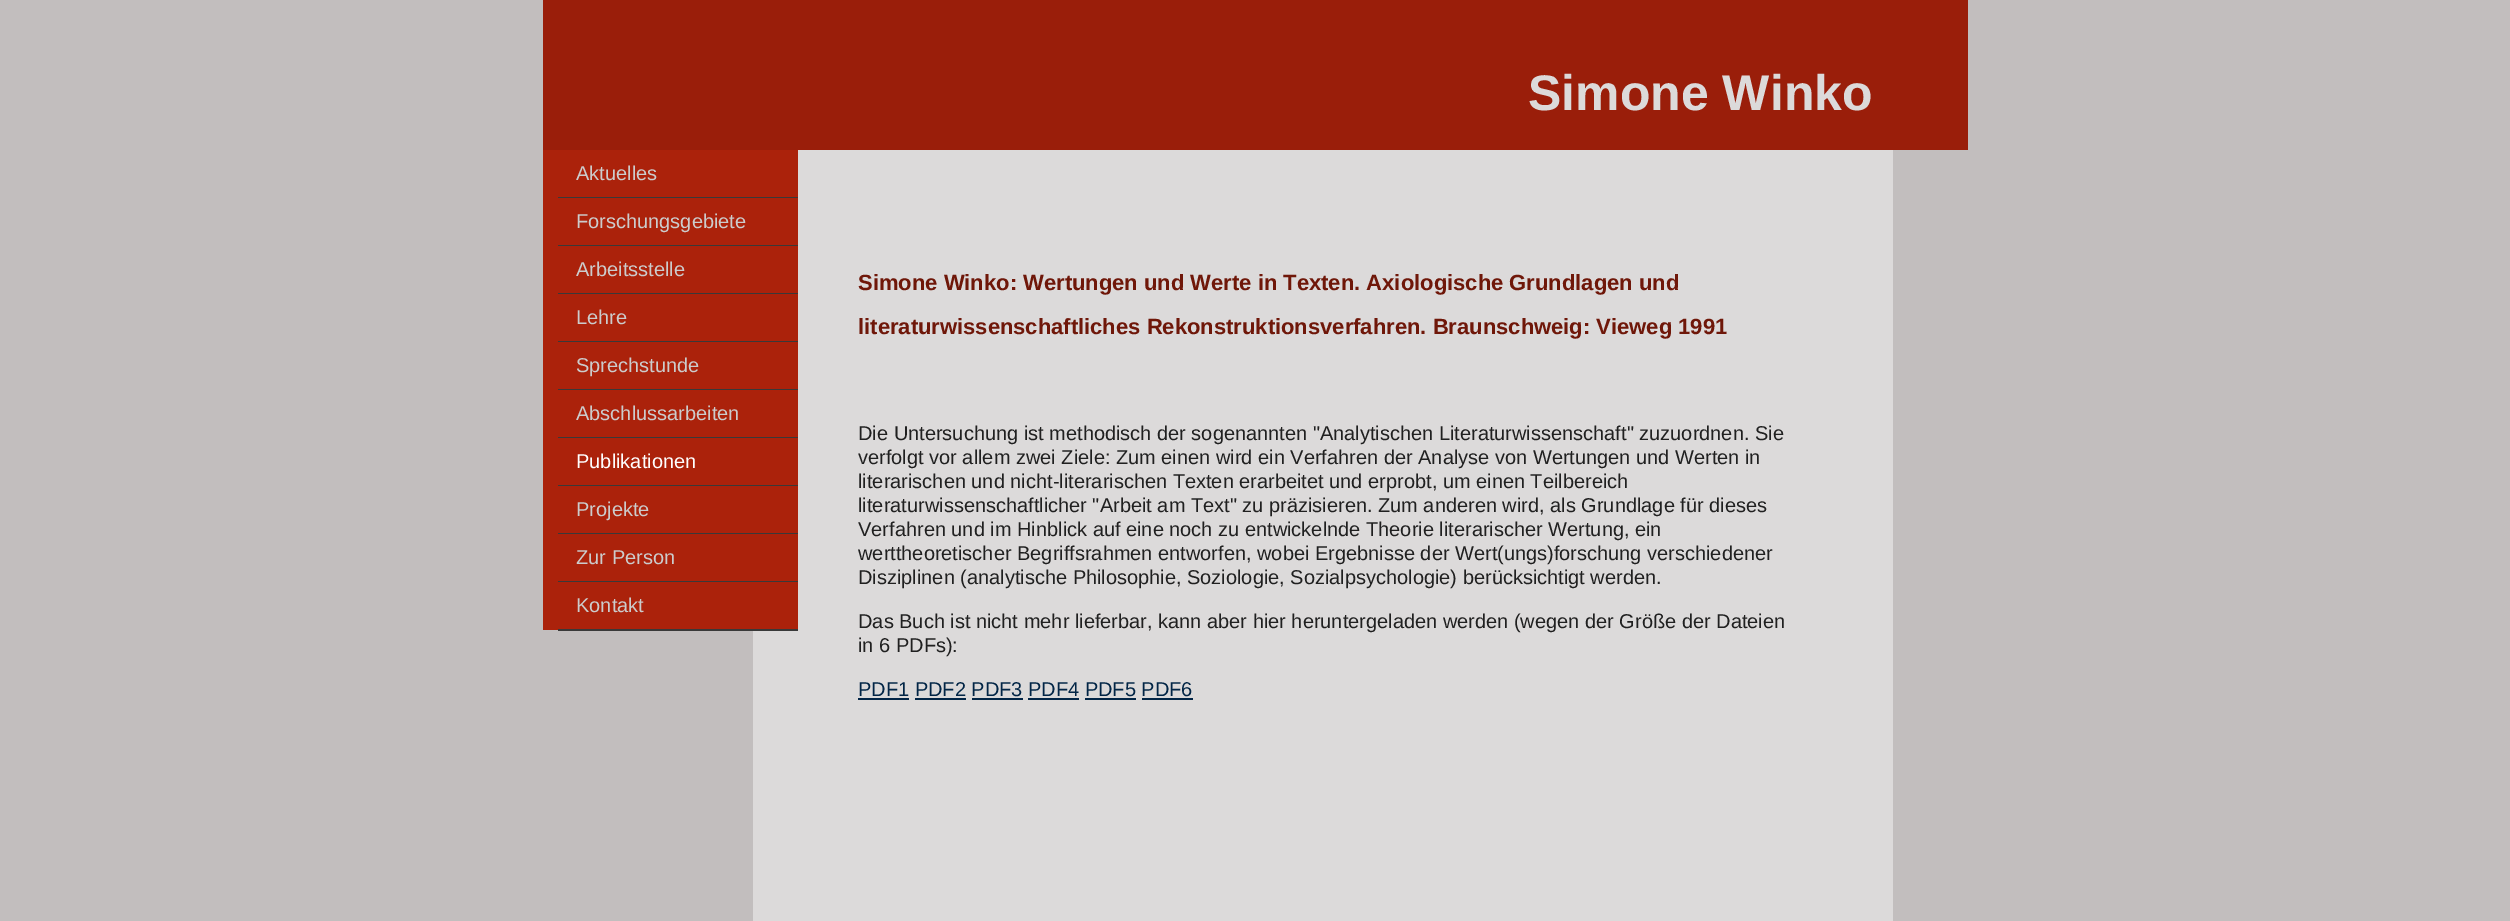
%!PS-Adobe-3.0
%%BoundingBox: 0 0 2510 921
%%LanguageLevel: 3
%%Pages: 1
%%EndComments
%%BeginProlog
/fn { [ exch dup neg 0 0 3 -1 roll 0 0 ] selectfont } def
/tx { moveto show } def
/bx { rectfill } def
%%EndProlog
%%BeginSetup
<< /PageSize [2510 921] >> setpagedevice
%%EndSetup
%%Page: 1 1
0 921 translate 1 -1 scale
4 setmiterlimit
0.761 0.745 0.745 setrgbcolor
0 0 2510 921 bx
0.604 0.118 0.039 setrgbcolor
543 0 1425 150 bx
/LiberationSans-Bold 50 fn
0.863 0.855 0.855 setrgbcolor
(Simone Winko) 1528 110 tx
0.671 0.133 0.043 setrgbcolor
543 150 15 480 bx
0.863 0.855 0.855 setrgbcolor
753 150 1140 771 bx
0.671 0.133 0.043 setrgbcolor
558 150 240 47 bx
0.224 setgray
558 197 240 1 bx
/LiberationSans-Regular 20 fn
0.8 setgray
(Aktuelles) 576 180 tx
0.671 0.133 0.043 setrgbcolor
558 198 240 47 bx
0.224 setgray
558 245 240 1 bx
0.8 setgray
(Forschungsgebiete) 576 228 tx
0.671 0.133 0.043 setrgbcolor
558 246 240 47 bx
0.224 setgray
558 293 240 1 bx
0.8 setgray
(Arbeitsstelle) 576 276 tx
0.671 0.133 0.043 setrgbcolor
558 294 240 47 bx
0.224 setgray
558 341 240 1 bx
0.8 setgray
(Lehre) 576 324 tx
0.671 0.133 0.043 setrgbcolor
558 342 240 47 bx
0.224 setgray
558 389 240 1 bx
0.8 setgray
(Sprechstunde) 576 372 tx
0.671 0.133 0.043 setrgbcolor
558 390 240 47 bx
0.224 setgray
558 437 240 1 bx
0.8 setgray
(Abschlussarbeiten) 576 420 tx
0.671 0.133 0.043 setrgbcolor
558 438 240 47 bx
0.224 setgray
558 485 240 1 bx
1 setgray
(Publikationen) 576 468 tx
0.671 0.133 0.043 setrgbcolor
558 486 240 47 bx
0.224 setgray
558 533 240 1 bx
0.8 setgray
(Projekte) 576 516 tx
0.671 0.133 0.043 setrgbcolor
558 534 240 47 bx
0.224 setgray
558 581 240 1 bx
0.8 setgray
(Zur Person) 576 564 tx
0.671 0.133 0.043 setrgbcolor
558 582 240 47 bx
0.224 setgray
558 629 240 2 bx
0.8 setgray
(Kontakt) 576 612 tx
/LiberationSans-Bold 22 fn
0.435 0.09 0.035 setrgbcolor
(Simone Winko: Wertungen und Werte in Texten. Axiologische Grundlagen und) 858 290 tx
(literaturwissenschaftliches Rekonstruktionsverfahren. Braunschweig: Vieweg 1991) 858 334 tx
/LiberationSans-Regular 20 fn
0.125 setgray
(Die Untersuchung ist methodisch der sogenannten "Analytischen Literaturwissenschaft" zuzuordnen. Sie) 858 440 tx
(verfolgt vor allem zwei Ziele: Zum einen wird ein Verfahren der Analyse von Wertungen und Werten in) 858 464 tx
(literarischen und nicht-literarischen Texten erarbeitet und erprobt, um einen Teilbereich) 858 488 tx
(literaturwissenschaftlicher "Arbeit am Text" zu präzisieren. Zum anderen wird, als Grundlage für dieses) 858 512 tx
(Verfahren und im Hinblick auf eine noch zu entwickelnde Theorie literarischer Wertung, ein) 858 536 tx
(werttheoretischer Begriffsrahmen entworfen, wobei Ergebnisse der Wert\(ungs\)forschung verschiedener) 858 560 tx
(Disziplinen \(analytische Philosophie, Soziologie, Sozialpsychologie\) berücksichtigt werden.) 858 584 tx
(Das Buch ist nicht mehr lieferbar, kann aber hier heruntergeladen werden \(wegen der Größe der Dateien) 858 628 tx
(in 6 PDFs\):) 858 652 tx
0.008 0.145 0.275 setrgbcolor
(PDF1 PDF2 PDF3 PDF4 PDF5 PDF6) 858 696 tx
858 698 51 2 bx
915 698 51 2 bx
972 698 51 2 bx
1028 698 51 2 bx
1085 698 51 2 bx
1142 698 51 2 bx
showpage
%%EOF
